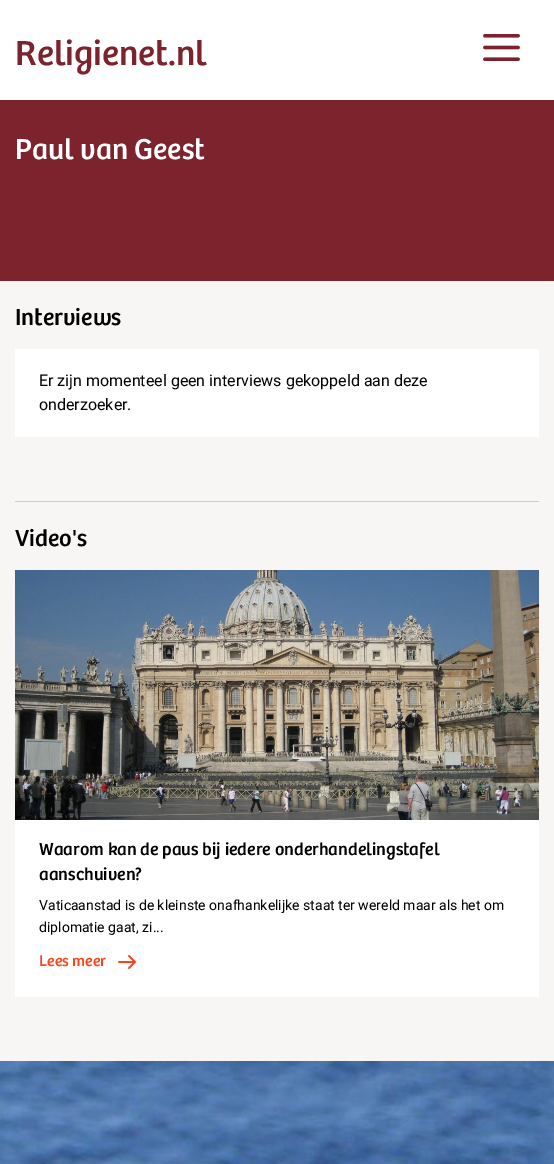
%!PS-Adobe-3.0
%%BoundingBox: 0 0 554 1164
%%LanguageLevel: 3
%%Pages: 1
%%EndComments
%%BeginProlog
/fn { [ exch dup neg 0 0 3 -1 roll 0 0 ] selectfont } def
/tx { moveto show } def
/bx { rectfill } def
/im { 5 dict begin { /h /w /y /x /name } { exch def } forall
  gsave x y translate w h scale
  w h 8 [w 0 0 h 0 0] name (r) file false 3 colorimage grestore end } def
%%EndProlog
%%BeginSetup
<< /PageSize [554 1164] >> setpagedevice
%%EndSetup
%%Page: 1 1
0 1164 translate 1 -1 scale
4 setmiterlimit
1 setgray
0 0 554 1164 bx
/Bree-Regular 36 fn
0.486 0.137 0.176 setrgbcolor
(Religienet.nl) 15 65 tx
(image0.raw) 483 34 37 27 im
0.969 0.965 0.957 setrgbcolor
0 281 554 780 bx
0.486 0.137 0.176 setrgbcolor
0 100 554 181 bx
/Bree-Regular 30 fn
1 setgray
(Paul van Geest) 15 159 tx
/Bree-Regular 24 fn
0 setgray
(Interviews) 15 325 tx
1 setgray
15 349 524 88 bx
/Roboto-Regular 16 fn
0 setgray
(Er zijn momenteel geen interviews gekoppeld aan deze) 39 386 tx
(onderzoeker.) 39 410 tx
0.8 setgray
15 501 524 1 bx
/Bree-Regular 24 fn
0 setgray
(Video's) 15 546 tx
1 setgray
15 820 524 177 bx
(image1.raw) 15 570 524 250 im
/Bree-Regular 18 fn
0 setgray
(Waarom kan de paus bij iedere onderhandelingstafel) 39 855 tx
(aanschuiven?) 39 880 tx
/Roboto-Regular 14 fn
(Vaticaanstad is de kleinste onafhankelijke staat ter wereld maar als het om) 39 910 tx
(diplomatie gaat, zi...) 39 932 tx
/Bree-Regular 16 fn
1 0.259 0.102 setrgbcolor
(Lees meer) 39 966 tx
(image2.raw) 118 955 18 14 im
(image3.raw) 0 1061 554 103 im
showpage
%%EOF
